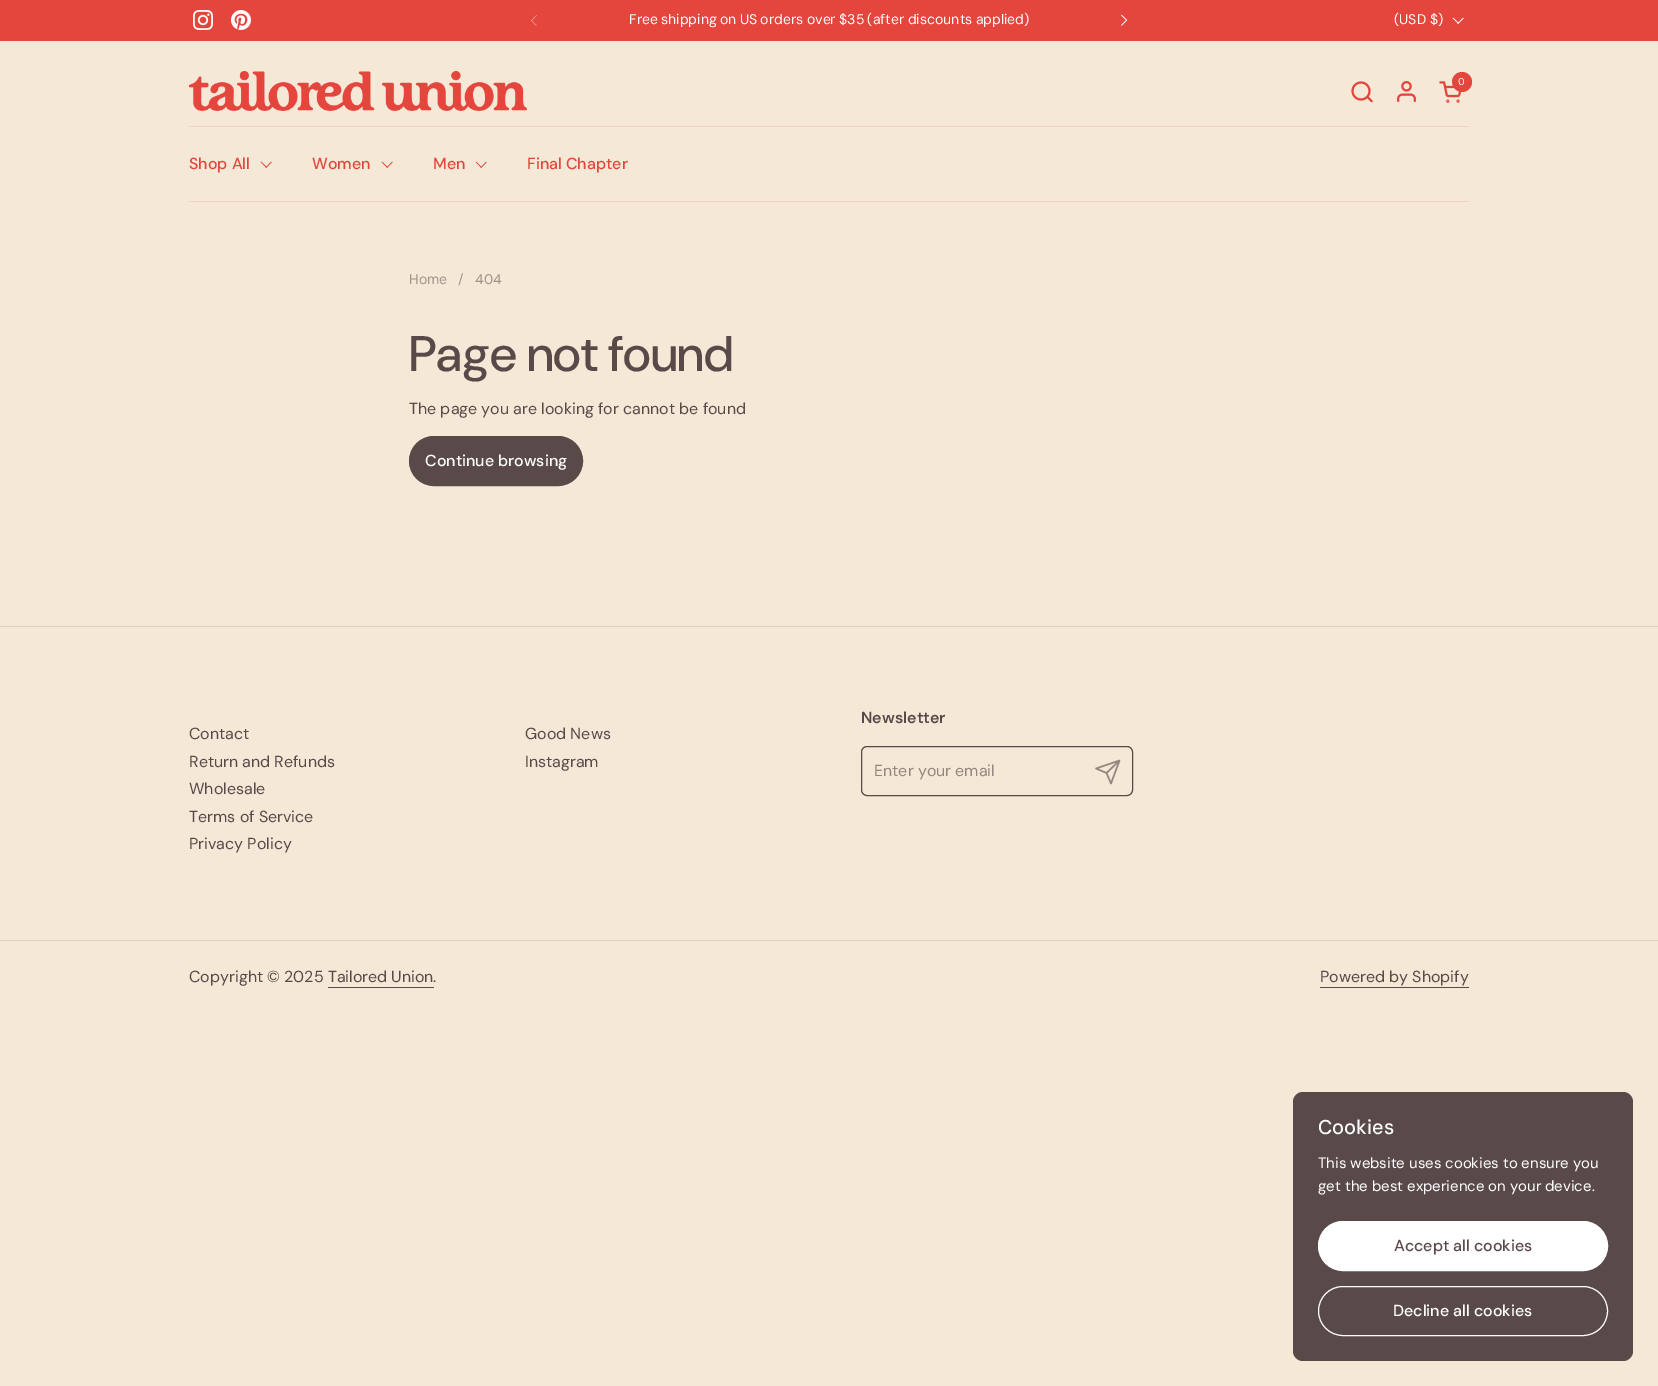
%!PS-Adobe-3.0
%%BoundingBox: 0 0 1658 1386
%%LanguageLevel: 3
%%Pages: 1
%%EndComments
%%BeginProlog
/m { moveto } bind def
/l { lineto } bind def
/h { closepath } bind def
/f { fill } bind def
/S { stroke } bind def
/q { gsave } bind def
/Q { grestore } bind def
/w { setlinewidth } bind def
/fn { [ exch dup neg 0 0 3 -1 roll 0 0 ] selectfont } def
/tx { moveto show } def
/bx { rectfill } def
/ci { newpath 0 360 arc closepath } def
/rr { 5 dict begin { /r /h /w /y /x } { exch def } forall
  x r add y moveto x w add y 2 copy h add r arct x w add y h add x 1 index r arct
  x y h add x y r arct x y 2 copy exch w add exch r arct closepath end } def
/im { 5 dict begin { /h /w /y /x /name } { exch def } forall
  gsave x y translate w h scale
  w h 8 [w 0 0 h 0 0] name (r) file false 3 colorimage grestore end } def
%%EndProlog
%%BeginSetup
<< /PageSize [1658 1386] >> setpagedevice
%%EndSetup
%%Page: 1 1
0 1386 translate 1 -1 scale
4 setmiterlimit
0.965 0.91 0.843 setrgbcolor
0 0 1658 1386 bx
0.894 0.275 0.243 setrgbcolor
0 0 1658 41 bx
(image0.raw) 193 10 20 20 im
(image1.raw) 231 10 20 20 im
(image2.raw) 531 15 6 11 im
/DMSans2-Regular 14 fn
1 setgray
629 24 m -0.5 0 32 (Free shipping on US orders over $35 \(after discounts applied\)) widthshow
(image3.raw) 1121 14 6 12 im
(\(USD $\)) 1394 24 tx
(image4.raw) 1452 17 12 7 im
(image5.raw) 189 71 338 40 im
(image6.raw) 1351 81 22 22 im
(image7.raw) 1397 81 19 21 im
0.894 0.275 0.243 setrgbcolor
1462 82 10 ci f
/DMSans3-Regular 10 fn
1 setgray
(0) 1458 85 tx
(image8.raw) 1439 81 22 22 im
0.953 0.816 0.753 setrgbcolor
189 126 1280 1 bx
/DMSans2-Medium 16 fn
0.894 0.275 0.243 setrgbcolor
(Shop All) 189 169 tx
(image9.raw) 260 161 12 7 im
(Women) 312 169 tx
(image9.raw) 381 161 12 7 im
(Men) 433 169 tx
(image9.raw) 475 161 12 7 im
(Final Chapter) 527 169 tx
0.953 0.816 0.753 setrgbcolor
189 201 1280 1 bx
/DMSans2-Regular 14 fn
0.631 0.576 0.541 setrgbcolor
(Home) 409 284 tx
(/) 458 284 tx
(404) 475 284 tx
/DMSans-Medium 50 fn
0.349 0.29 0.286 setrgbcolor
(Page not found) 409 371 tx
/DMSans-Regular 16 fn
(The page you are looking for cannot be found) 409 414 tx
409.5 436.5 173 49 24.5 rr q f Q
S
/DMSans2-Medium 16 fn
1 setgray
(Continue browsing) 425 466 tx
0.871 0.816 0.761 setrgbcolor
0 626 1658 1 bx
/DMSans-Regular 16 fn
0.349 0.29 0.286 setrgbcolor
(Contact) 189 739 tx
(Return and Refunds) 189 767 tx
(Wholesale) 189 794 tx
(Terms of Service) 189 822 tx
(Privacy Policy) 189 849 tx
(Good News) 525 739 tx
(Instagram) 525 767 tx
/DMSans-SemiBold 16 fn
(Newsletter) 861 723 tx
861.5 746.5 271 49 5.5 rr S
/DMSans-Regular 16 fn
0.584 0.525 0.498 setrgbcolor
(Enter your email) 874 776 tx
1.5 w
1 setlinecap
1 setlinejoin
1119.5 760.5 m 1106.5 773 l 1119.5 760.5 m 1111 783.5 l 1106.5 773 l 1096 768.5 l h S
0.871 0.816 0.761 setrgbcolor
0 940 1658 1 bx
0.349 0.29 0.286 setrgbcolor
(Copyright © 2025 Tailored Union.) 189 982 tx
328 987 106 1 bx
(Powered by Shopify) 1320 982 tx
1320 987 149 1 bx
1293 1092 340 269 10 rr f
/DMSans3-Medium 20 fn
1 setgray
(Cookies) 1318 1134 tx
/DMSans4-Regular 15 fn
(This website uses cookies to ensure you) 1318 1168 tx
(get the best experience on your device.) 1318 1191 tx
1318.5 1221.5 289 49 24.5 rr q f Q
1 w
0 setlinecap
0 setlinejoin
S
/DMSans2-Medium 16 fn
0.349 0.29 0.286 setrgbcolor
(Accept all cookies) 1394 1251 tx
1 setgray
1318.5 1286.5 289 49 24.5 rr S
(Decline all cookies) 1393 1316 tx
showpage
%%EOF
